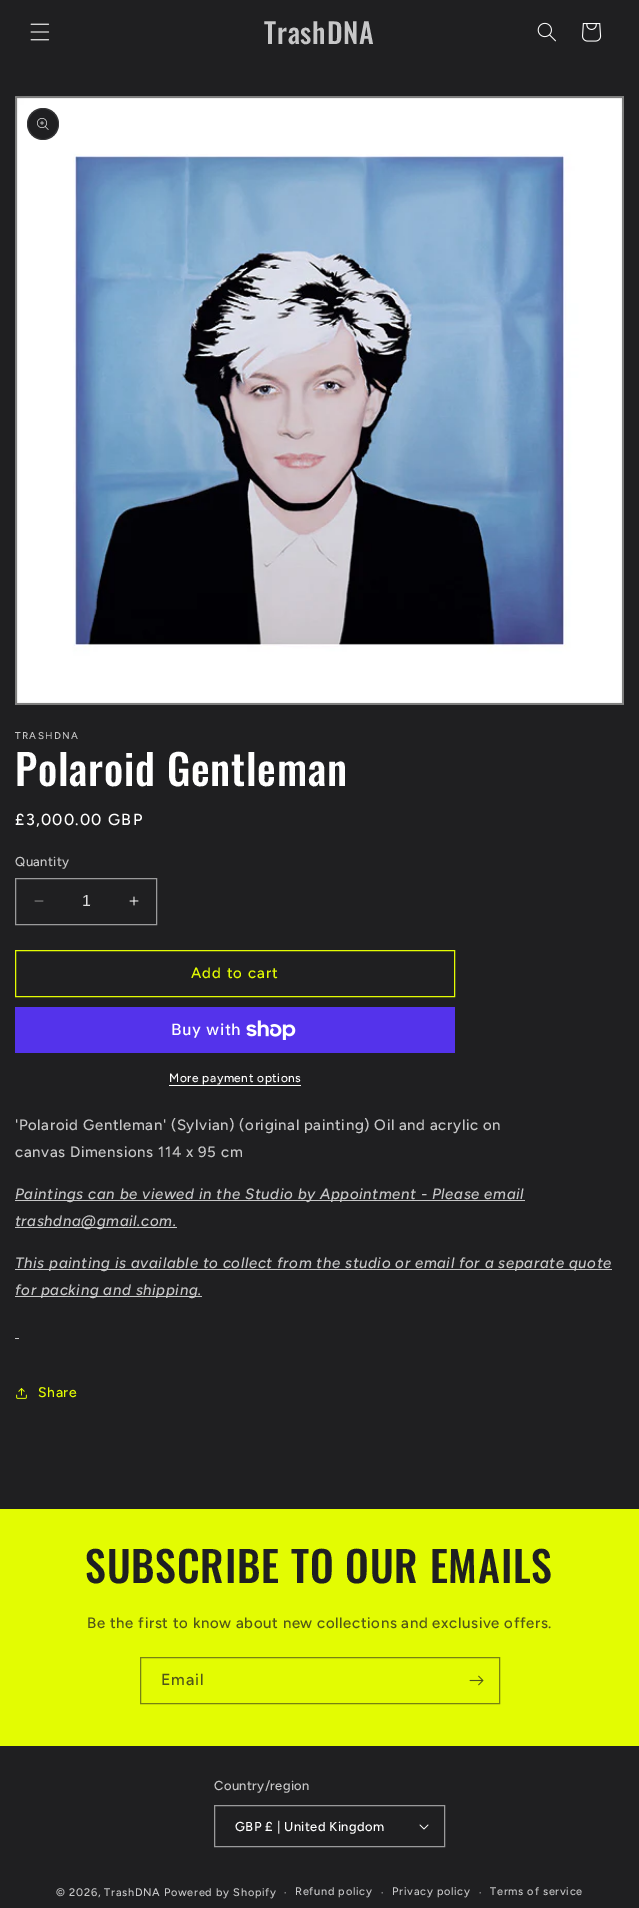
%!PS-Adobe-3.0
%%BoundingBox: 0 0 639 1908
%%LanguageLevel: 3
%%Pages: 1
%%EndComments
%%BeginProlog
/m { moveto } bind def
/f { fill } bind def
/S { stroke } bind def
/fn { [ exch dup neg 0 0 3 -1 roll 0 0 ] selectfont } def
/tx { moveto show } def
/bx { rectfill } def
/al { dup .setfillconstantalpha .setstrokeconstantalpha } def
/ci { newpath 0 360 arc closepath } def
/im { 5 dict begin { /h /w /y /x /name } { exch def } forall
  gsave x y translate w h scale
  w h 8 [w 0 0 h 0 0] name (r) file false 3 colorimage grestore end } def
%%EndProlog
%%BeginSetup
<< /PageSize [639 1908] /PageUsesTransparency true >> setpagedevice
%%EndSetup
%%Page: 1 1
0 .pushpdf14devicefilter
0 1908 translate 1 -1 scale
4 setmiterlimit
0.122 0.122 0.129 setrgbcolor
0 0 639 1908 bx
(image0.raw) 30 23 20 18 im
/Oswald-Medium 28 fn
0.78 0.78 0.784 setrgbcolor
264 44 m 0.8 0 (TrashDNA) ashow
(image1.raw) 537 22 19 20 im
(image2.raw) 582 23 20 19 im
(image3.raw) 15 96 609 609 im
0.122 0.122 0.129 setrgbcolor
43 124 16 ci f
0.1 al
1 setgray
43 124 15.5 ci S
1 al
(image4.raw) 37 118 12 12 im
/Figtree-Medium 10 fn
0.78 0.78 0.784 setrgbcolor
15 739 m 1.25 0 (TRASHDNA) ashow
/Oswald-Medium 42 fn
1 setgray
15 786 m 0.8 0 (Polaroid Gentleman) ashow
/Figtree-Medium 16 fn
15 825 m 1.25 0 (£3,000.00 GBP) ashow
/Figtree-Medium 13 fn
0.78 0.78 0.784 setrgbcolor
15 866 m 0.4 0 (Quantity) ashow
(image5.raw) 34 900 10 2 im
(image6.raw) 129 896 10 10 im
0.604 0.604 0.608 setrgbcolor
15.5 878.5 141 46 rectstroke
/LiberationSans-Regular 16 fn
0.867 0.867 0.871 setrgbcolor
(1) 82 906 tx
0.89 0.988 0.008 setrgbcolor
15.5 950.5 439 46 rectstroke
/Figtree-Medium 15 fn
191 978 m 1 0 (Add to cart) ashow
0.329 0.2 0.922 setrgbcolor
15 1007 440 46 bx
/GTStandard-Medium 16 fn
1 setgray
171 1035 m 0.6 0 (Buy with) ashow
(image7.raw) 246 1020 50 20 im
/Figtree-Medium 12 fn
169 1082 m 0.5 0 (More payment options) ashow
169 1085 132 1 bx
/Figtree-Medium 15 fn
0.78 0.78 0.784 setrgbcolor
15 1130 m 0.6 0 ('Polaroid Gentleman' \(Sylvian\) \(original painting\) Oil and acrylic on) ashow
15 1157 m 0.6 0 (canvas Dimensions 114 x 95 cm) ashow
15 1200 510 1 bx
/Figtree-MediumItalic 15 fn
15 1199 m 0.6 0 (Paintings can be viewed in the Studio by Appointment - Please email) ashow
15 1227 162 1 bx
15 1226 m 0.6 0 (trashdna@gmail.com.) ashow
15 1269 597 1 bx
15 1268 m 0.6 0 (This painting is available to collect from the studio or email for a separate quote) ashow
15 1296 187 1 bx
15 1295 m 0.6 0 (for packing and shipping.) ashow
15 1338 4 1 bx
(image8.raw) 16 1388 11 11 im
/Figtree-Medium 14 fn
0.89 0.988 0.008 setrgbcolor
38 1397 m 0.6 0 (Share) ashow
0 1509 639 237 bx
/Oswald-Medium 42 fn
0.122 0.122 0.129 setrgbcolor
85 1583 m 0.8 0 (SUBSCRIBE TO OUR EMAILS) ashow
/Figtree-Medium 15 fn
0.314 0.337 0.098 setrgbcolor
87 1628 m 0.6 0 (Be the first to know about new collections and exclusive offers.) ashow
0.467 0.51 0.075 setrgbcolor
140.5 1657.5 359 46 rectstroke
/Figtree-Medium 16 fn
0.314 0.337 0.098 setrgbcolor
161 1685 m 1 0 (Email) ashow
(image9.raw) 469 1675 15 11 im
/Figtree-Medium 13 fn
0.78 0.78 0.784 setrgbcolor
214 1790 m 0.4 0 (Country/region) ashow
(image10.raw) 419 1824 10 6 im
0.604 0.604 0.608 setrgbcolor
214.5 1805.5 230 41 rectstroke
1 setgray
235 1831 m 0.4 0 (GBP £ | United Kingdom) ashow
/Figtree-Medium 11 fn
0.78 0.78 0.784 setrgbcolor
56 1896 m 0.7 0 (© 2026, TrashDNA Powered by Shopify) ashow
/Figtree-Medium 10 fn
284 1896 m 0.7 0 (·) ashow
/Figtree-Medium 11 fn
295 1895 m 0.7 0 (Refund policy) ashow
/Figtree-Medium 10 fn
381 1896 m 0.7 0 (·) ashow
/Figtree-Medium 11 fn
392 1895 m 0.7 0 (Privacy policy) ashow
/Figtree-Medium 10 fn
479 1896 m 0.7 0 (·) ashow
/Figtree-Medium 11 fn
490 1895 m 0.7 0 (Terms of service) ashow
.poppdf14devicefilter showpage
%%EOF
